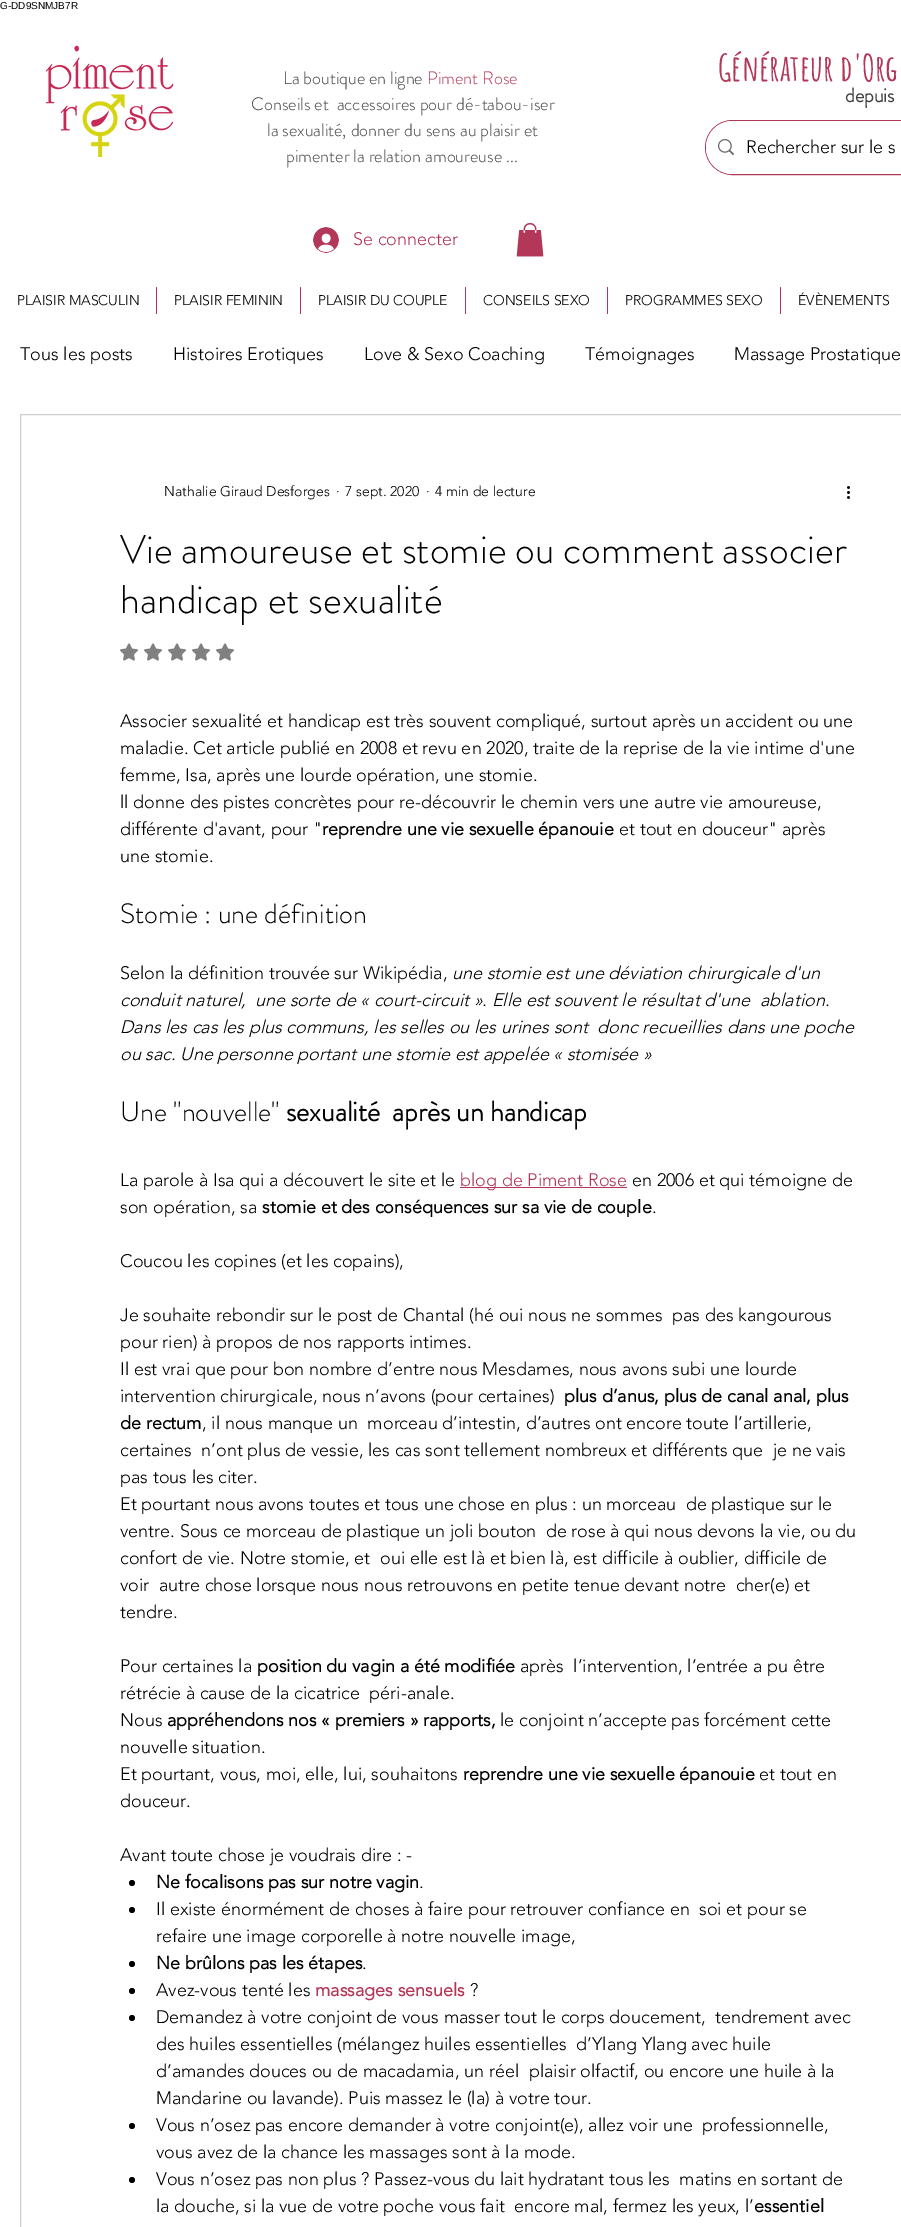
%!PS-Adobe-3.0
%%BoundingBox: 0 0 901 2227
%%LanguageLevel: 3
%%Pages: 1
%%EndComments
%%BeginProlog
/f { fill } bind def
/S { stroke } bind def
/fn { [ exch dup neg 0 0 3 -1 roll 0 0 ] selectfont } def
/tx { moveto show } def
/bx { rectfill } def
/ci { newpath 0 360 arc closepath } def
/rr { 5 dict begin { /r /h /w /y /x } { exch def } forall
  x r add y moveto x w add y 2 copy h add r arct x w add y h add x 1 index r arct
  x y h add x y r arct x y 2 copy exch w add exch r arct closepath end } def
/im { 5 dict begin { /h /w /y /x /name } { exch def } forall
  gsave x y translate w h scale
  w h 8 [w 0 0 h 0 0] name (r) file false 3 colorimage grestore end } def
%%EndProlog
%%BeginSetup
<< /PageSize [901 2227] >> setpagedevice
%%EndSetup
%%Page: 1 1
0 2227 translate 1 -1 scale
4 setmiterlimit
1 setgray
0 0 901 2227 bx
/LiberationSans-Regular 10 fn
0 setgray
(G-DD9SNMJB7R) 0 9 tx
(image0.raw) 45 45 129 112 im
/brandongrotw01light-Light 18 fn
0.251 setgray
(La boutique en ligne) 283 84 tx
0.702 0.216 0.349 setrgbcolor
(Piment Rose) 427 84 tx
0.251 setgray
(Conseils et  accessoires pour dé-tabou-iser) 251 110 tx
(la sexualité, donner du sens au plaisir et) 267 136 tx
(pimenter la relation amoureuse ...) 286 162 tx
(image1.raw) 313 227 26 26 im
/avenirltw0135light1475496-Light 18 fn
0.702 0.216 0.349 setrgbcolor
(Se connecter) 353 245 tx
(image2.raw) 516 223 28 34 im
/AmaticSC-Bold 36 fn
(Générateur d'Org) 718 81 tx
/brandongrotw01light-Bold 20 fn
0.251 setgray
(depuis) 845 102 tx
0.702 0.216 0.349 setrgbcolor
705.5 120.5 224 54 27 rr S
1 setgray
706 121 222 53 26.5 rr f
(image3.raw) 718 139 16 17 im
/avenirltw0135light1475496-Light 18 fn
0 setgray
(Rechercher sur le s) 746 153 tx
/avenirltw0135light1475496-Light 14 fn
(PLAISIR MASCULIN) 17 305 tx
0.702 0.216 0.349 setrgbcolor
156 287 1 27 bx
0 setgray
(PLAISIR FEMININ) 174 305 tx
0.702 0.216 0.349 setrgbcolor
300 287 1 27 bx
0 setgray
(PLAISIR DU COUPLE) 318 305 tx
0.702 0.216 0.349 setrgbcolor
465 287 1 27 bx
0 setgray
(CONSEILS SEXO) 483 305 tx
0.702 0.216 0.349 setrgbcolor
607 287 1 27 bx
0 setgray
(PROGRAMMES SEXO) 625 305 tx
0.702 0.216 0.349 setrgbcolor
780 287 1 27 bx
0 setgray
(ÉVÈNEMENTS) 798 305 tx
/avenirltw0135light1475496-Light 18 fn
(Tous les posts) 20 360 tx
(Histoires Erotiques) 173 360 tx
(Love & Sexo Coaching) 364 360 tx
(Témoignages) 585 360 tx
(Massage Prostatique) 734 360 tx
0.812 setgray
20.5 414.5 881 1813 rectstroke
/avenirltw0135light1475496-Light 14 fn
0 setgray
(Nathalie Giraud Desforges) 164 496 tx
(·) 336 496 tx
(7 sept. 2020) 345 496 tx
(·) 426 496 tx
(4 min de lecture) 435 496 tx
(image4.raw) 847 486 3 13 im
/brandongrotw01light-Light 40 fn
(Vie amoureuse et stomie ou comment associer) 120 563 tx
(handicap et sexualité) 120 613 tx
(image5.raw) 120 643 18 18 im
(image5.raw) 144 643 18 18 im
(image5.raw) 168 643 18 18 im
(image5.raw) 192 643 18 18 im
(image5.raw) 216 643 18 18 im
/avenirltw0135light1475496-Light 18 fn
(Associer sexualité et handicap est très souvent compliqué, surtout après un accident ou une) 120 727 tx
(maladie. Cet article publié en 2008 et revu en 2020, traite de la reprise de la vie intime d'une) 120 754 tx
(femme, Isa, après une lourde opération, une stomie.) 120 781 tx
(ll donne des pistes concrètes pour re-découvrir le chemin vers une autre vie amoureuse,) 120 808 tx
(différente d'avant, pour ") 120 835 tx
/avenirltw0135light1475496-Bold 18 fn
(reprendre une vie sexuelle épanouie) 322 835 tx
/avenirltw0135light1475496-Light 18 fn
(et tout en douceur" après) 619 835 tx
(une stomie.) 120 862 tx
/brandongrotw01light-Light 28 fn
(Stomie : une définition) 120 923 tx
/avenirltw0135light1475496-Light 18 fn
(Selon la définition trouvée sur Wikipédia,) 120 979 tx
/avenirltw0135light1475496-LightItalic 18 fn
(une stomie est une déviation chirurgicale d'un) 452 979 tx
(conduit naturel,  une sorte de « court-circuit ». Elle est souvent le résultat d'une  ablation.) 120 1006 tx
(Dans les cas les plus communs, les selles ou les urines sont  donc recueillies dans une poche) 120 1033 tx
(ou sac. Une personne portant une stomie est appelée « stomisée ») 120 1060 tx
/brandongrotw01light-Light 28 fn
(Une "nouvelle") 120 1121 tx
/brandongrotw01light-Bold 28 fn
(sexualité  après un handicap) 286 1121 tx
/avenirltw0135light1475496-Light 18 fn
(La parole à Isa qui a découvert le site et le) 120 1186 tx
0.702 0.216 0.349 setrgbcolor
460 1187 167 1 bx
(blog de Piment Rose) 460 1186 tx
0 setgray
(en 2006 et qui témoigne de) 632 1186 tx
(son opération, sa) 120 1213 tx
/avenirltw0135light1475496-Bold 18 fn
(stomie et des conséquences sur sa vie de couple) 262 1213 tx
/avenirltw0135light1475496-Light 18 fn
(.) 652 1213 tx
(Coucou les copines \(et les copains\),) 120 1267 tx
(Je souhaite rebondir sur le post de Chantal \(hé oui nous ne sommes  pas des kangourous) 120 1321 tx
(pour rien\) à propos de nos rapports intimes.) 120 1348 tx
(Il est vrai que pour bon nombre d’entre nous Mesdames, nous avons subi une lourde) 120 1375 tx
(intervention chirurgicale, nous n’avons \(pour certaines\)) 120 1402 tx
/avenirltw0135light1475496-Bold 18 fn
(plus d’anus, plus de canal anal, plus) 564 1402 tx
(de rectum) 120 1429 tx
/avenirltw0135light1475496-Light 18 fn
(, il nous manque un  morceau d’intestin, d’autres ont encore toute l’artillerie,) 202 1429 tx
(certaines  n’ont plus de vessie, les cas sont tellement nombreux et différents que  je ne vais) 120 1456 tx
(pas tous les citer.) 120 1483 tx
(Et pourtant nous avons toutes et tous une chose en plus : un morceau  de plastique sur le) 120 1510 tx
(ventre. Sous ce morceau de plastique un joli bouton  de rose à qui nous devons la vie, ou du) 120 1537 tx
(confort de vie. Notre stomie, et  oui elle est là et bien là, est difficile à oublier, difficile de) 120 1564 tx
(voir  autre chose lorsque nous nous retrouvons en petite tenue devant notre  cher\(e\) et) 120 1591 tx
(tendre.) 120 1618 tx
(Pour certaines la) 120 1672 tx
/avenirltw0135light1475496-Bold 18 fn
(position du vagin a été modifiée) 257 1672 tx
/avenirltw0135light1475496-Light 18 fn
(après  l’intervention, l’entrée a pu être) 520 1672 tx
(rétrécie à cause de la cicatrice  péri-anale.) 120 1699 tx
(Nous) 120 1726 tx
/avenirltw0135light1475496-Bold 18 fn
(appréhendons nos « premiers » rapports,) 167 1726 tx
/avenirltw0135light1475496-Light 18 fn
(le conjoint n’accepte pas forcément cette) 500 1726 tx
(nouvelle situation.) 120 1753 tx
(Et pourtant, vous, moi, elle, lui, souhaitons) 120 1780 tx
/avenirltw0135light1475496-Bold 18 fn
(reprendre une vie sexuelle épanouie) 463 1780 tx
/avenirltw0135light1475496-Light 18 fn
(et tout en) 759 1780 tx
(douceur.) 120 1807 tx
(Avant toute chose je voudrais dire : -) 120 1861 tx
132 1883 3 ci f
/avenirltw0135light1475496-Bold 18 fn
(Ne focalisons pas sur notre vagin) 156 1888 tx
/avenirltw0135light1475496-Light 18 fn
(.) 419 1888 tx
132 1910 3 ci f
(Il existe énormément de choses à faire pour retrouver confiance en  soi et pour se) 156 1915 tx
(refaire une image corporelle à notre nouvelle image,) 156 1942 tx
132 1964 3 ci f
/avenirltw0135light1475496-Bold 18 fn
(Ne brûlons pas les étapes) 156 1969 tx
/avenirltw0135light1475496-Light 18 fn
(.) 362 1969 tx
132 1991 3 ci f
(Avez-vous tenté les) 156 1996 tx
/avenirltw0135light1475496-Bold 18 fn
0.702 0.216 0.349 setrgbcolor
(massages sensuels) 315 1996 tx
/avenirltw0135light1475496-Light 18 fn
0 setgray
(?) 470 1996 tx
132 2018 3 ci f
(Demandez à votre conjoint de vous masser tout le corps doucement,  tendrement avec) 156 2023 tx
(des huiles essentielles \(mélangez huiles essentielles  d’Ylang Ylang avec huile) 156 2050 tx
(d’amandes douces ou de macadamia, un réel  plaisir olfactif, ou encore une huile à la) 156 2077 tx
(Mandarine ou lavande\). Puis massez le \(la\) à votre tour.) 156 2104 tx
132 2126 3 ci f
(Vous n’osez pas encore demander à votre conjoint\(e\), allez voir une  professionnelle,) 156 2131 tx
(vous avez de la chance les massages sont à la mode.) 156 2158 tx
132 2180 3 ci f
(Vous n’osez pas non plus ? Passez-vous du lait hydratant tous les  matins en sortant de) 156 2185 tx
(la douche, si la vue de votre poche vous fait  encore mal, fermez les yeux, l’) 156 2212 tx
/avenirltw0135light1475496-Bold 18 fn
(essentiel) 754 2212 tx
showpage
%%EOF
